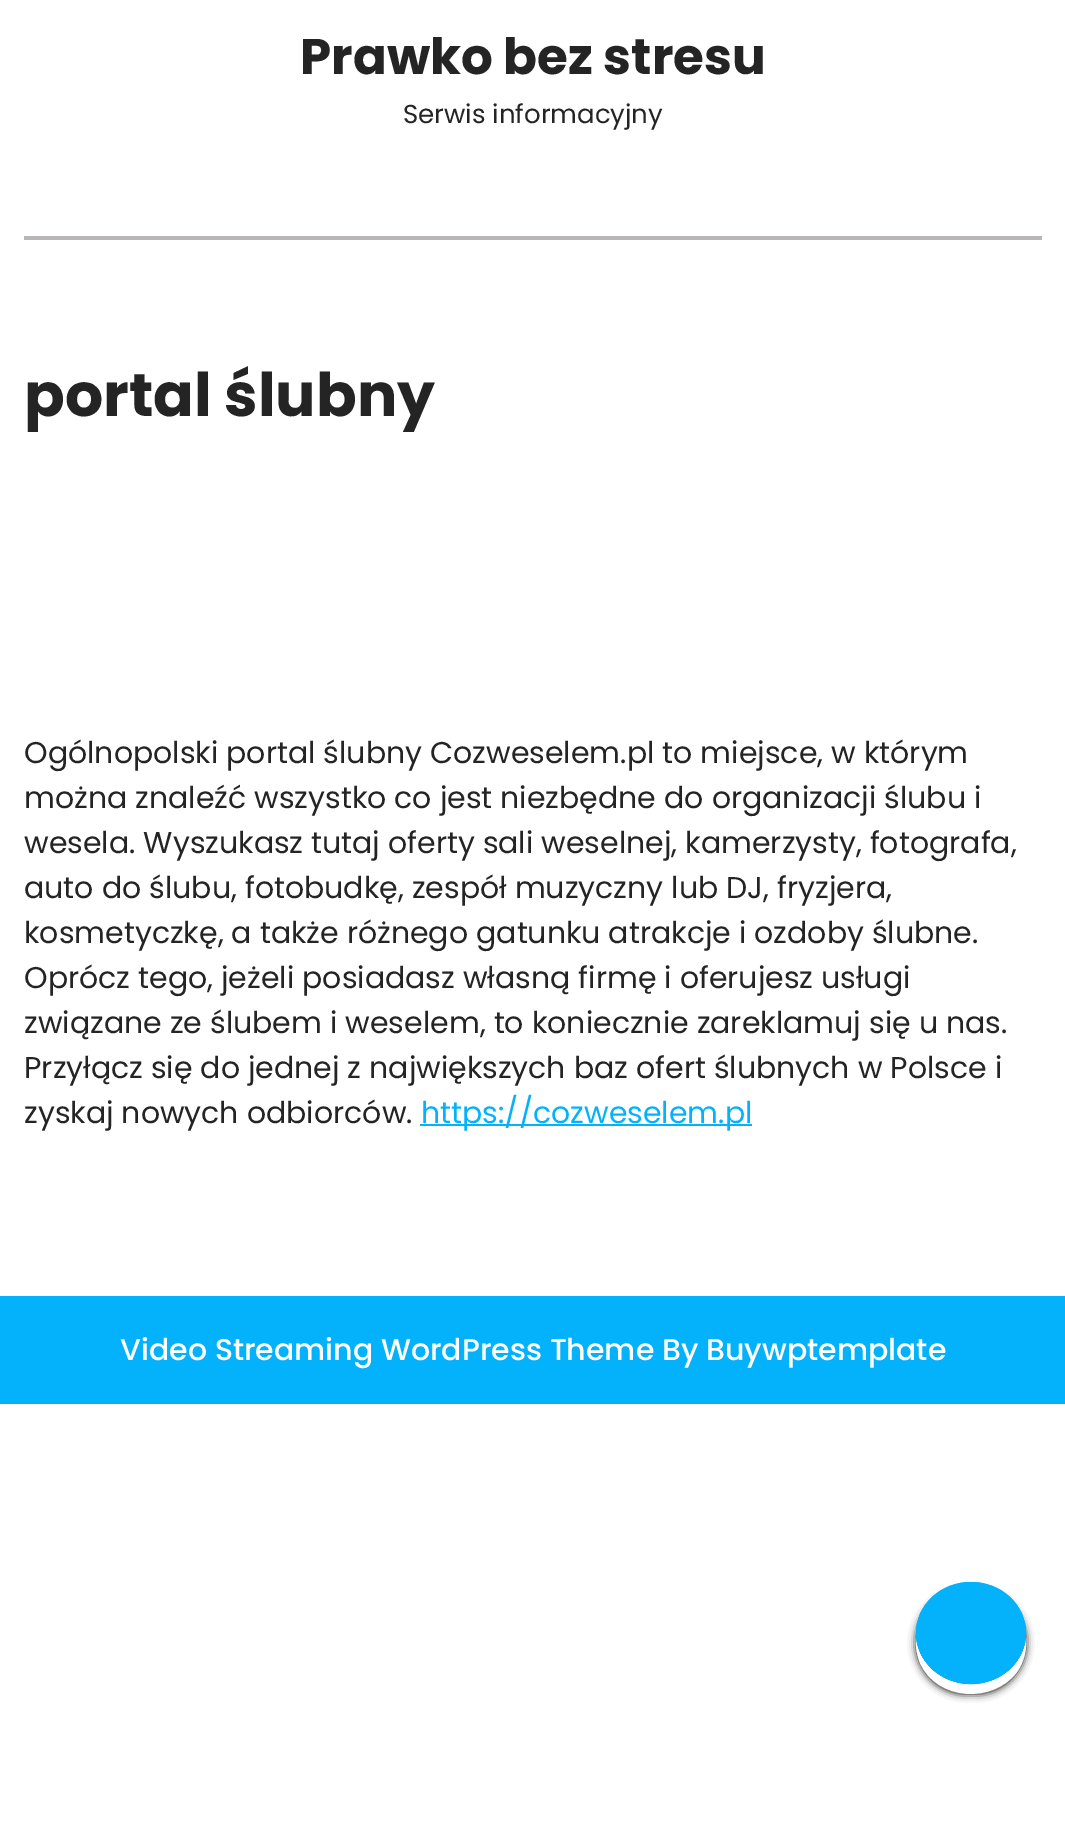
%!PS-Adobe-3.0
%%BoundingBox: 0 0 1065 1824
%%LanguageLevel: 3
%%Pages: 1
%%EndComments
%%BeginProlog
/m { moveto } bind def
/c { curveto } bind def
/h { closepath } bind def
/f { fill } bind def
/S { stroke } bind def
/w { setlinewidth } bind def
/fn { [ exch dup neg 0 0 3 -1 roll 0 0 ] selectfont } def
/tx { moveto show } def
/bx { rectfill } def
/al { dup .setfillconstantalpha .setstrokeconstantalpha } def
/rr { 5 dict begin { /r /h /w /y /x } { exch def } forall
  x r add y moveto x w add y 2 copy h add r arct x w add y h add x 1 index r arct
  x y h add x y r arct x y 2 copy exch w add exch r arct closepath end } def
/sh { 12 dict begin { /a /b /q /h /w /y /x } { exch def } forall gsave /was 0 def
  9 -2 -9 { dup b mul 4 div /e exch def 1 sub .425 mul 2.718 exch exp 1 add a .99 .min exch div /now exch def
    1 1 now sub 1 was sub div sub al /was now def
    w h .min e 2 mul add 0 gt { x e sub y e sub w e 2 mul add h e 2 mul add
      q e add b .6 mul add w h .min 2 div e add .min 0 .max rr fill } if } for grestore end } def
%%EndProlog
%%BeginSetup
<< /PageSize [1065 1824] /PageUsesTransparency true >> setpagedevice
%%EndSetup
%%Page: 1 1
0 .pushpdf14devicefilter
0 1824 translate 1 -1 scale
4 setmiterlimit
1 setgray
0 0 1065 1824 bx
0.725 0.714 0.714 setrgbcolor
24 236 1018 4 bx
/Poppins-Bold 50 fn
0.141 setgray
(Prawko bez stresu) 300 74 tx
/Poppins-Regular 26 fn
(Serwis informacyjny) 403 123 tx
/Poppins-Bold 60 fn
(portal ślubny) 24 416 tx
/Poppins-Regular 30 fn
(Ogólnopolski portal ślubny Cozweselem.pl to miejsce, w którym) 24 763 tx
(można znaleźć wszystko co jest niezbędne do organizacji ślubu i) 24 808 tx
(wesela. Wyszukasz tutaj oferty sali weselnej, kamerzysty, fotografa,) 24 853 tx
(auto do ślubu, fotobudkę, zespół muzyczny lub DJ, fryzjera,) 24 898 tx
(kosmetyczkę, a także różnego gatunku atrakcje i ozdoby ślubne.) 24 943 tx
(Oprócz tego, jeżeli posiadasz własną firmę i oferujesz usługi) 24 988 tx
(związane ze ślubem i weselem, to koniecznie zareklamuj się u nas.) 24 1033 tx
(Przyłącz się do jednej z największych baz ofert ślubnych w Polsce i) 24 1078 tx
(zyskaj nowych odbiorców.) 24 1123 tx
0.012 0.698 0.984 setrgbcolor
420 1124 332 2 bx
(https://cozweselem.pl) 421 1123 tx
0 1296 1065 108 bx
/Poppins-Medium 30 fn
1 setgray
(Video Streaming WordPress Theme By Buywptemplate) 120 1360 tx
0 setgray
916 1592 110 102 51 4 1 sh
1 setgray
916 1638 m 915 1646 917 1655 920 1663 c 937 1701 993 1704 1017 1672 c 1024 1662 1027 1650 1026 1638 c 1023 1664 1000 1684 971 1684 c 942 1684 919 1664 916 1638 c h f
0.012 0.698 0.984 setrgbcolor
971 1582 m 1001.5 1582 1026 1605 1026 1633 c 1026 1661 1001.5 1684 971 1684 c 940.5 1684 916 1661 916 1633 c 916 1605 940.5 1582 971 1582 c h f
4 w
971 1584 m 1000.5 1584 1024 1606 1024 1633 c 1024 1660 1000.5 1682 971 1682 c 941.5 1682 918 1660 918 1633 c 918 1606 941.5 1584 971 1584 c h S
.poppdf14devicefilter showpage
%%EOF
